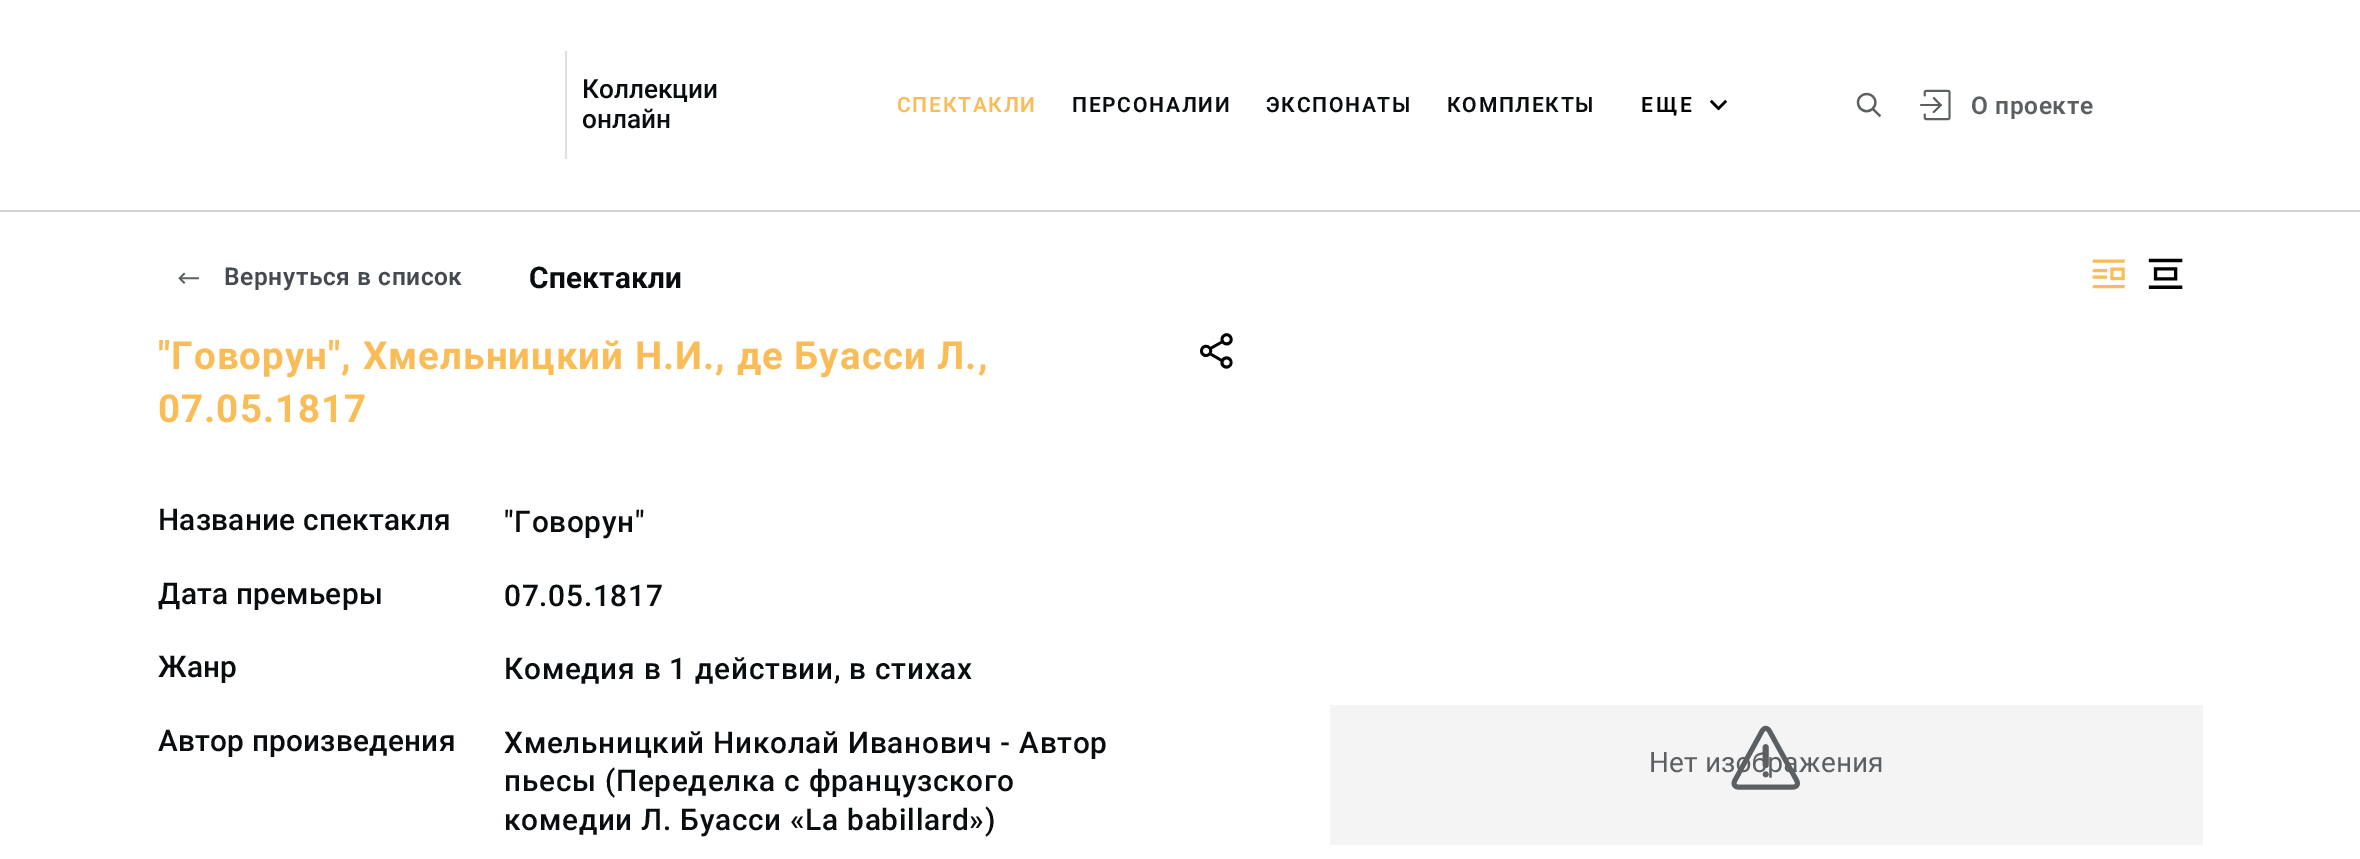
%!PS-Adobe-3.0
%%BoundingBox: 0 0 2360 859
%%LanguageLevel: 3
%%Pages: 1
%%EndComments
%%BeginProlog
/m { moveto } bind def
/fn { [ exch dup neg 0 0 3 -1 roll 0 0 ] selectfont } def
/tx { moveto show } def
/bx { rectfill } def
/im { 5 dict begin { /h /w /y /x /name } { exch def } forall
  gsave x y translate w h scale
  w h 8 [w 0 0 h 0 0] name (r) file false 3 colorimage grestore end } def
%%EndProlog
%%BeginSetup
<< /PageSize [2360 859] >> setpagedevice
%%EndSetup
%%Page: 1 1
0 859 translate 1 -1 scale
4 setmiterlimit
1 setgray
0 0 2360 859 bx
0.827 setgray
0 210 2360 2 bx
0.871 setgray
565 51 2 108 bx
/Roboto-Medium 26.25 fn
0.039 0.051 0.063 setrgbcolor
(Коллекции) 582 98 tx
(онлайн) 582 128 tx
/Roboto-SemiBold 21 fn
0.98 0.737 0.341 setrgbcolor
897 112 m 1.75 0 (СПЕКТАКЛИ) ashow
0.039 0.051 0.063 setrgbcolor
1072 112 m 1.75 0 (ПЕРСОНАЛИИ) ashow
1266 112 m 1.75 0 (ЭКСПОНАТЫ) ashow
1447 112 m 1.75 0 (КОМПЛЕКТЫ) ashow
0 setgray
1641 112 m 3 0 (ЕЩЕ) ashow
(image0.raw) 1709 99 19 12 im
(image1.raw) 1856 92 26 26 im
(image2.raw) 1920 89 31 32 im
/Roboto-SemiBold 24.5 fn
0.361 0.373 0.384 setrgbcolor
1971 114 m 0.6 0 (О проекте) ashow
(image3.raw) 178 272 21 12 im
0.267 0.29 0.314 setrgbcolor
224 285 m 0.6 0 (Вернуться в список) ashow
/Roboto-Bold 29.75 fn
0.039 0.051 0.063 setrgbcolor
529 288 m 0.25 0 (Спектакли) ashow
(image4.raw) 2092 259 33 30 im
(image5.raw) 2148 258 35 31 im
/Roboto-Bold 38.5 fn
0.98 0.737 0.341 setrgbcolor
158 369 m 1.05 0 ("Говорун", Хмельницкий Н.И., де Буасси Л.,) ashow
158 422 m 1.05 0 (07.05.1817) ashow
(image6.raw) 1200 333 33 36 im
/Roboto-Medium 29.75 fn
0.039 0.051 0.063 setrgbcolor
158 530 m 0.25 0 (Название спектакля) ashow
504 532 m 0.75 0 ("Говорун") ashow
158 604 m 0.25 0 (Дата премьеры) ashow
504 606 m 0.75 0 (07.05.1817) ashow
158 677 m 0.25 0 (Жанр) ashow
504 679 m 0.75 0 (Комедия в 1 действии, в стихах) ashow
158 751 m 0.25 0 (Автор произведения) ashow
504 753 m 0.75 0 (Хмельницкий Николай Иванович - Автор) ashow
504 791 m 0.75 0 (пьесы \(Переделка с французского) ashow
504 830 m 0.75 0 (комедии Л. Буасси «La babillard»\)) ashow
0.957 0.957 0.961 setrgbcolor
1330 705 873 140 bx
/Roboto-Regular 28 fn
0.361 0.373 0.384 setrgbcolor
1649 772 m 0.2 0 (Нет изображения) ashow
(image7.raw) 1731 725 69 65 im
showpage
%%EOF
